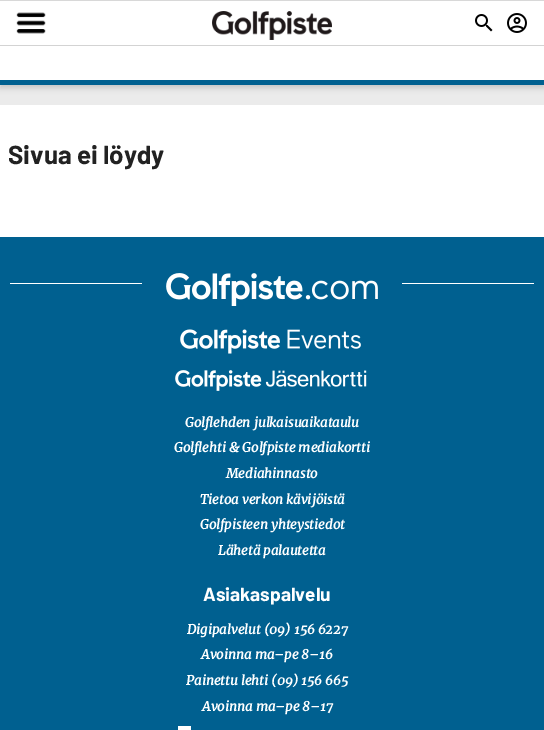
%!PS-Adobe-3.0
%%BoundingBox: 0 0 544 730
%%LanguageLevel: 3
%%Pages: 1
%%EndComments
%%BeginProlog
/fn { [ exch dup neg 0 0 3 -1 roll 0 0 ] selectfont } def
/tx { moveto show } def
/bx { rectfill } def
/al { dup .setfillconstantalpha .setstrokeconstantalpha } def
/rr { 5 dict begin { /r /h /w /y /x } { exch def } forall
  x r add y moveto x w add y 2 copy h add r arct x w add y h add x 1 index r arct
  x y h add x y r arct x y 2 copy exch w add exch r arct closepath end } def
/sh { 12 dict begin { /a /b /q /h /w /y /x } { exch def } forall gsave /was 0 def
  9 -2 -9 { dup b mul 4 div /e exch def 1 sub .425 mul 2.718 exch exp 1 add a .99 .min exch div /now exch def
    1 1 now sub 1 was sub div sub al /was now def
    w h .min e 2 mul add 0 gt { x e sub y e sub w e 2 mul add h e 2 mul add
      q e add b .6 mul add w h .min 2 div e add .min 0 .max rr fill } if } for grestore end } def
/im { 5 dict begin { /h /w /y /x /name } { exch def } forall
  gsave x y translate w h scale
  w h 8 [w 0 0 h 0 0] name (r) file false 3 colorimage grestore end } def
%%EndProlog
%%BeginSetup
<< /PageSize [544 730] /PageUsesTransparency true >> setpagedevice
%%EndSetup
%%Page: 1 1
0 .pushpdf14devicefilter
0 730 translate 1 -1 scale
4 setmiterlimit
0.922 setgray
0 0 544 730 bx
0 setgray
0 3 544 85 0 3 0.16 sh
1 setgray
0 1 544 79 bx
0.847 setgray
0 0 544 1 bx
0 0.376 0.565 setrgbcolor
0 80 544 5 bx
(image0.raw) 16 12 30 22 im
(image1.raw) 212 11 120 29 im
(image2.raw) 475 14 18 18 im
(image3.raw) 507 13 20 20 im
0.827 setgray
0 45 544 1 bx
1 setgray
0 105 544 132 bx
/Barlow-Bold 26 fn
0.133 setgray
(Sivua ei löydy) 8 164 tx
0 0.376 0.565 setrgbcolor
0 237 544 493 bx
1 setgray
10 283 132 1 bx
(image4.raw) 166 273 212 33 im
402 283 132 1 bx
(image5.raw) 180 329 181 25 im
(image6.raw) 175 370 192 21 im
/Merriweather-BoldItalic 13 fn
(Golflehden julkaisuaikataulu) 185 427 tx
(Golflehti & Golfpiste mediakortti) 174 452 tx
(Mediahinnasto) 226 478 tx
(Tietoa verkon kävijöistä) 200 504 tx
(Golfpisteen yhteystiedot) 200 529 tx
(Lähetä palautetta) 218 555 tx
/Barlow-Bold 19 fn
(Asiakaspalvelu) 203 601 tx
/Merriweather-BoldItalic 13 fn
(Digipalvelut \(09\) 156 6227) 187 634 tx
(Avoinna ma–pe 8–16) 201 659 tx
(Painettu lehti \(09\) 156 665) 186 685 tx
(Avoinna ma–pe 8–17) 202 711 tx
178 726 13 4 bx
.poppdf14devicefilter showpage
%%EOF
